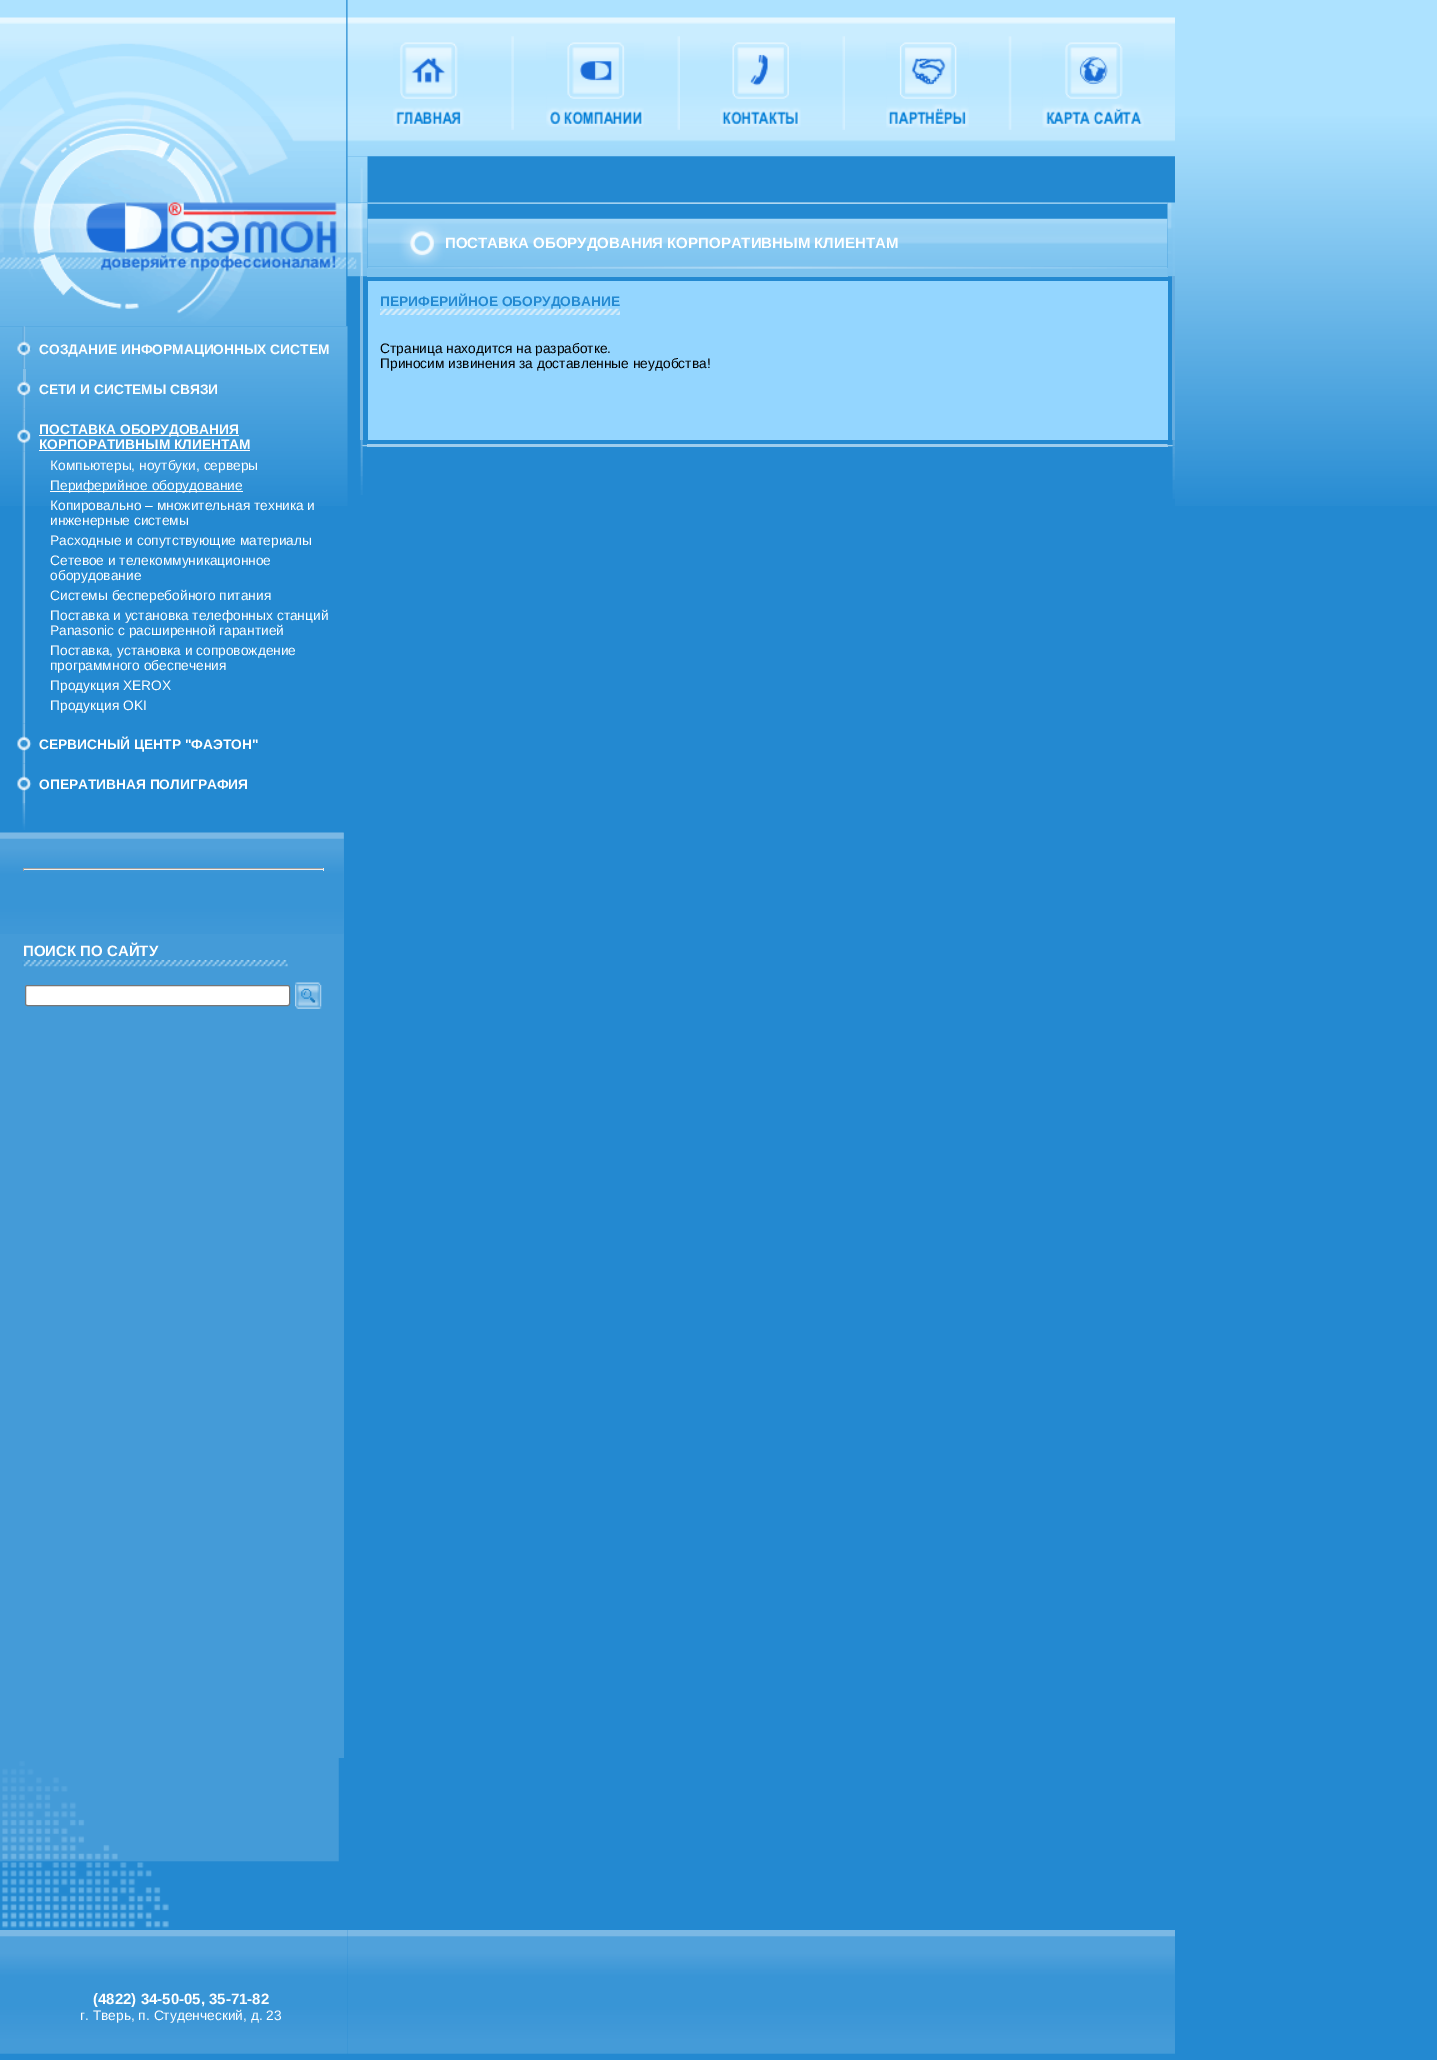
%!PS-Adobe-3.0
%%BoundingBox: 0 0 1437 2060
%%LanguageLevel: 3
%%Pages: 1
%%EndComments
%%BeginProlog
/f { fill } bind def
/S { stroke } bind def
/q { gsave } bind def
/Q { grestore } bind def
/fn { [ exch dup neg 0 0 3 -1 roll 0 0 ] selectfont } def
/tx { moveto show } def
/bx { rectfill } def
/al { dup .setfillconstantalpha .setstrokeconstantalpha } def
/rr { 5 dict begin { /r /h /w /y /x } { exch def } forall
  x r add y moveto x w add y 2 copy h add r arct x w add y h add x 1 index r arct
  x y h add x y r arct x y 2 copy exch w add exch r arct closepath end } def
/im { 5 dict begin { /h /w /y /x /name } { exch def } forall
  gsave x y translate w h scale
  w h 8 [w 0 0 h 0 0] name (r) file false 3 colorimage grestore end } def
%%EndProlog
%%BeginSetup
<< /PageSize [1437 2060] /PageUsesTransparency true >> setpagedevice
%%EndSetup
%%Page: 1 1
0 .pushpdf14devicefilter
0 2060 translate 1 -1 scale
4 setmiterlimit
0.137 0.537 0.82 setrgbcolor
0 0 1437 2060 bx
(image0.raw) 347 0 828 157 im
(image1.raw) 393 42 71 85 im
(image2.raw) 511 36 3 94 im
(image3.raw) 546 42 98 85 im
(image4.raw) 677 36 3 94 im
(image5.raw) 720 42 81 85 im
(image4.raw) 842 36 3 94 im
(image6.raw) 886 42 83 86 im
(image7.raw) 1008 36 4 94 im
(image8.raw) 1042 42 102 86 im
(image10.raw) 347 202 21 75 im
(image9.raw) 347 156 21 47 im
(image13.raw) 445 218 723 49 im
0.486 0.761 0.933 setrgbcolor
367 268 801 9 bx
(image15.raw) 1167 202 8 75 im
(image11.raw) 367 202 801 2 im
(image12.raw) 367 218 78 49 im
/LiberationSans-Bold 15 fn
1 setgray
(ПОСТАВКА ОБОРУДОВАНИЯ КОРПОРАТИВНЫМ КЛИЕНТАМ) 445 248 tx
(image14.raw) 367 266 801 3 im
0.498 0.733 0.894 setrgbcolor
360 276 3 164 bx
0.4 0.678 0.878 setrgbcolor
1172 276 3 164 bx
0.58 0.839 1 setrgbcolor
368 281 800 159 bx
(image16.raw) 380 308 240 7 im
/LiberationSans-Bold 13.75 fn
0.137 0.537 0.82 setrgbcolor
(ПЕРИФЕРИЙНОЕ ОБОРУДОВАНИЕ) 380 306 tx
/LiberationSans-Regular 13.75 fn
0 setgray
(Страница находится на разработке.) 380 353 tx
(Приносим извинения за доставленные неудобства!) 380 368 tx
0.62 0.804 0.929 setrgbcolor
367 444 801 3 bx
(image17.raw) 360 440 8 7 im
(image18.raw) 1167 440 8 7 im
(image19.raw) 360 446 3 49 im
(image20.raw) 1172 446 3 53 im
(image21.raw) 1175 0 262 506 im
(image23.raw) 0 326 348 180 im
(image24.raw) 22 326 4 16 im
(image22.raw) 0 0 347 327 im
(image25.raw) 22 341 4 16 im
(image26.raw) 17 341 15 15 im
/LiberationSans-Bold 13.75 fn
1 setgray
(СОЗДАНИЕ ИНФОРМАЦИОННЫХ СИСТЕМ) 39 354 tx
(image27.raw) 22 356 4 13 im
0.9 al
0.537 0.757 0.91 setrgbcolor
23 369 3 13 bx
1 al
(image28.raw) 22 381 4 16 im
(image29.raw) 17 381 14 15 im
1 setgray
(СЕТИ И СИСТЕМЫ СВЯЗИ) 39 394 tx
(image30.raw) 22 396 4 13 im
(image31.raw) 22 408 4 14 im
(image32.raw) 22 421 4 31 im
(image33.raw) 17 428 14 16 im
39 435 200 1 bx
(ПОСТАВКА ОБОРУДОВАНИЯ) 39 434 tx
(КОРПОРАТИВНЫМ КЛИЕНТАМ) 39 449 tx
39 450 211 1 bx
(image34.raw) 22 451 4 273 im
/LiberationSans-Regular 13.75 fn
(Компьютеры, ноутбуки, серверы) 50 470 tx
50 491 193 1 bx
(Периферийное оборудование) 50 490 tx
(Копировально – множительная техника и) 50 510 tx
(инженерные системы) 50 525 tx
(Расходные и сопутствующие материалы) 50 545 tx
(Сетевое и телекоммуникационное) 50 565 tx
(оборудование) 50 580 tx
(Системы бесперебойного питания) 50 600 tx
(Поставка и установка телефонных станций) 50 620 tx
(Panasonic с расширенной гарантией) 50 635 tx
(Поставка, установка и сопровождение) 50 655 tx
(программного обеспечения) 50 670 tx
(Продукция XEROX) 50 690 tx
(Продукция OKI) 50 710 tx
(image35.raw) 22 723 4 14 im
(image36.raw) 22 736 4 16 im
(image38.raw) 22 751 4 13 im
(image37.raw) 17 736 15 16 im
/LiberationSans-Bold 13.75 fn
(СЕРВИСНЫЙ ЦЕНТР "ФАЭТОН") 39 749 tx
(image35.raw) 22 763 4 14 im
(image36.raw) 22 776 4 16 im
(image38.raw) 22 791 4 13 im
(image39.raw) 17 776 15 16 im
(ОПЕРАТИВНАЯ ПОЛИГРАФИЯ) 39 789 tx
(image40.raw) 22 804 4 26 im
0.267 0.608 0.847 setrgbcolor
0 833 344 925 bx
(image41.raw) 0 832 344 102 im
0.624 setgray
23 868 301 1 bx
0.933 setgray
323 868 1 3 bx
23 869 301 1 bx
0.624 setgray
23 868 1 3 bx
/LiberationSans-Bold 15 fn
1 setgray
(ПОИСК ПО САЙТУ) 23 956 tx
(image42.raw) 22 960 266 7 im
25.5 985.5 264 20 2 rr q f Q
0.463 setgray
S
(image43.raw) 295 982 27 27 im
(image44.raw) 0 1758 339 170 im
(image45.raw) 0 1930 348 124 im
1 setgray
(\(4822\) 34-50-05, 35-71-82) 93 2004 tx
/LiberationSans-Regular 13.75 fn
(г. Тверь, п. Студенческий, д. 23) 80 2020 tx
(image46.raw) 347 1930 828 124 im
.poppdf14devicefilter showpage
%%EOF
